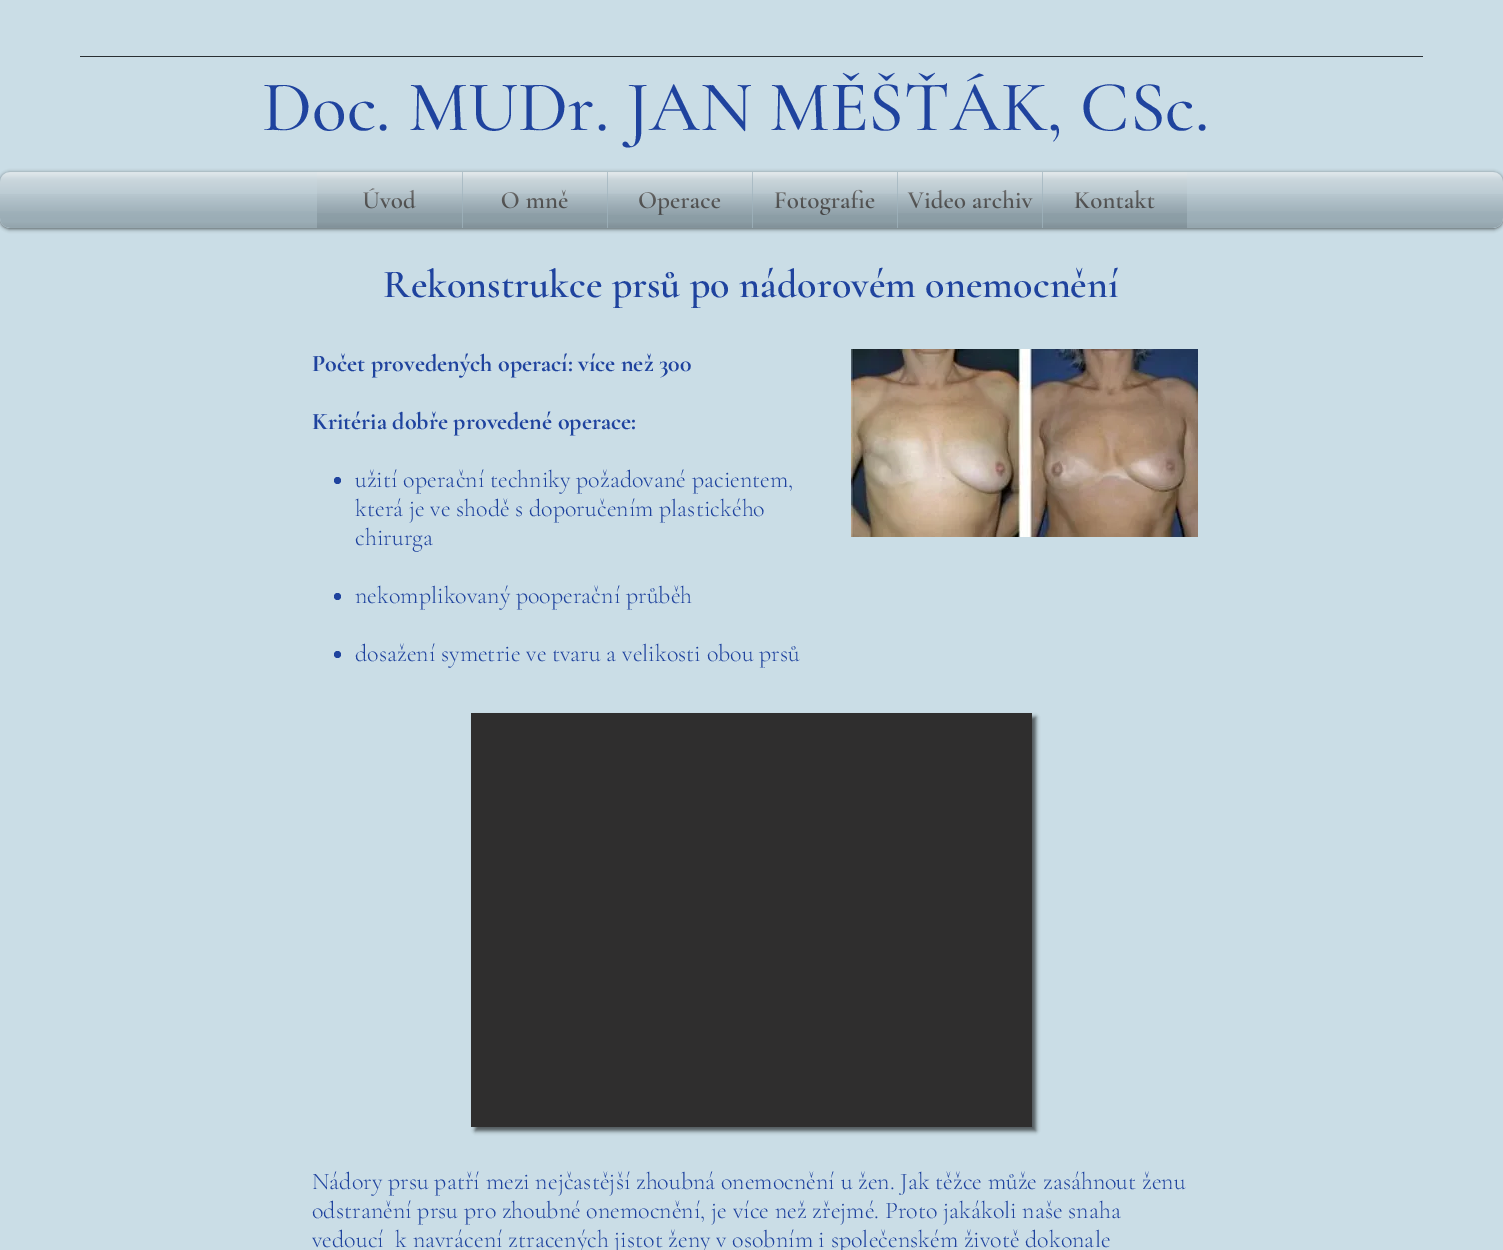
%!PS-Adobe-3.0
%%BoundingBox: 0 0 1503 1250
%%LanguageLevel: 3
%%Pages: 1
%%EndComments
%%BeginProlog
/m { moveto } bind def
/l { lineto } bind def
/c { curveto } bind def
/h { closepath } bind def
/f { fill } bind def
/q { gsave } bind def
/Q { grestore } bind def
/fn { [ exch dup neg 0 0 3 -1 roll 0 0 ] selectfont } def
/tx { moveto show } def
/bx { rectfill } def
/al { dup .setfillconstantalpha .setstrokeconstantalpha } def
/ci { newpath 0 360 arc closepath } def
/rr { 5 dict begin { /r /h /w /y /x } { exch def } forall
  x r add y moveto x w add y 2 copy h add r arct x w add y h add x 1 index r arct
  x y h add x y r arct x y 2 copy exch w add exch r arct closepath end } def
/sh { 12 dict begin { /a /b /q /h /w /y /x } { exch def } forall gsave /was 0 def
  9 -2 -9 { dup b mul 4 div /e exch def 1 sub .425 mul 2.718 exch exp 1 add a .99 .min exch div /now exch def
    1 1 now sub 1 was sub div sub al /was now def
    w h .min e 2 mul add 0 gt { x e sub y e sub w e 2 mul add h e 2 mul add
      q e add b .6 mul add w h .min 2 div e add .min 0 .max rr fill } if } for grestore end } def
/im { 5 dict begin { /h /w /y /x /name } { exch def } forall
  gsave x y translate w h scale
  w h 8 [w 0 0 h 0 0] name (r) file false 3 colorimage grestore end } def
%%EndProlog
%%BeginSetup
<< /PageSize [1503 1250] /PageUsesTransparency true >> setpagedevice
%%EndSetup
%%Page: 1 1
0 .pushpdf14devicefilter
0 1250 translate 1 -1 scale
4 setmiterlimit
0.792 0.867 0.902 setrgbcolor
0 0 1503 1250 bx
0.161 0.184 0.2 setrgbcolor
80 56 1343 1 bx
/CormorantGaramond-Medium 72 fn
0.122 0.263 0.62 setrgbcolor
(Doc. MUDr. JAN MĚŠŤÁK, CSc.) 262 130 tx
q
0 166 m 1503 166 l 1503 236 l 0 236 l h 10 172 m 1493 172 l 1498.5 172 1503 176.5 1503 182 c 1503 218 l 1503 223.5 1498.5 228 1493 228 c 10 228 l 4.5 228 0 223.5 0 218 c 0 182 l 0 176.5 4.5 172 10 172 c h eoclip newpath
0 setgray
0 173 1503 56 10 2 0.6 sh
Q
0.62 al
0.604 0.682 0.722 setrgbcolor
0 172 1503 56 10 rr f
1 al
(image0.raw) 0 172 1503 39 im
(image1.raw) 0 194 1503 34 im
0.62 al
317 172 145 56 bx
/CormorantGaramond-SemiBold 25 fn
1 al
0.267 setgray
(Úvod) 362 208 tx
(image2.raw) 317 172 145 41 im
(image3.raw) 317 194 145 34 im
0.62 al
0.604 0.682 0.722 setrgbcolor
462 172 145 56 bx
1 al
0.267 setgray
(O mně) 501 208 tx
(image4.raw) 463 172 144 41 im
(image5.raw) 463 194 144 34 im
0.62 al
0.604 0.682 0.722 setrgbcolor
607 172 145 56 bx
1 al
0.267 setgray
(Operace) 638 208 tx
(image6.raw) 608 172 144 43 im
(image7.raw) 608 194 144 34 im
0.62 al
0.604 0.682 0.722 setrgbcolor
752 172 145 56 bx
1 al
0.267 setgray
(Fotografie) 774 208 tx
(image8.raw) 753 172 144 43 im
(image9.raw) 753 194 144 34 im
0.62 al
0.604 0.682 0.722 setrgbcolor
897 172 145 56 bx
1 al
0.267 setgray
(Video archiv) 908 208 tx
(image10.raw) 898 172 144 41 im
(image11.raw) 898 194 144 34 im
0.62 al
0.604 0.682 0.722 setrgbcolor
1042 172 145 56 bx
1 al
0.267 setgray
(Kontakt) 1074 208 tx
(image12.raw) 1043 172 144 41 im
(image13.raw) 1043 194 144 34 im
/CormorantGaramond-SemiBold 40 fn
0.122 0.263 0.62 setrgbcolor
(Rekonstrukce prsů po nádorovém onemocnění) 383 297 tx
/CormorantGaramond-Bold 24 fn
(Počet provedených operací: více než 300) 312 371 tx
(Kritéria dobře provedené operace:) 312 429 tx
337.5 480.5 3.5 ci f
/CormorantGaramond-Light 24 fn
(užití operační techniky požadované pacientem,) 355 487 tx
(která je ve shodě s doporučením plastického) 355 516 tx
(chirurga) 355 545 tx
337.5 596.5 3.5 ci f
(nekomplikovaný pooperační průběh) 355 603 tx
337.5 654.5 3.5 ci f
(dosažení symetrie ve tvaru a velikosti obou prsů) 355 661 tx
(image14.raw) 851 349 347 188 im
0 setgray
475 717 561 414 0 2 0.6 sh
0.184 0.18 0.18 setrgbcolor
471 713 561 414 bx
0.122 0.263 0.62 setrgbcolor
(Nádory prsu patří mezi nejčastější zhoubná onemocnění u žen. Jak těžce může zasáhnout ženu) 312 1189 tx
(odstranění prsu pro zhoubné onemocnění, je více než zřejmé. Proto jakákoli naše snaha) 312 1218 tx
(vedoucí  k navrácení ztracených jistot ženy v osobním i společenském životě dokonale) 312 1247 tx
.poppdf14devicefilter showpage
%%EOF
